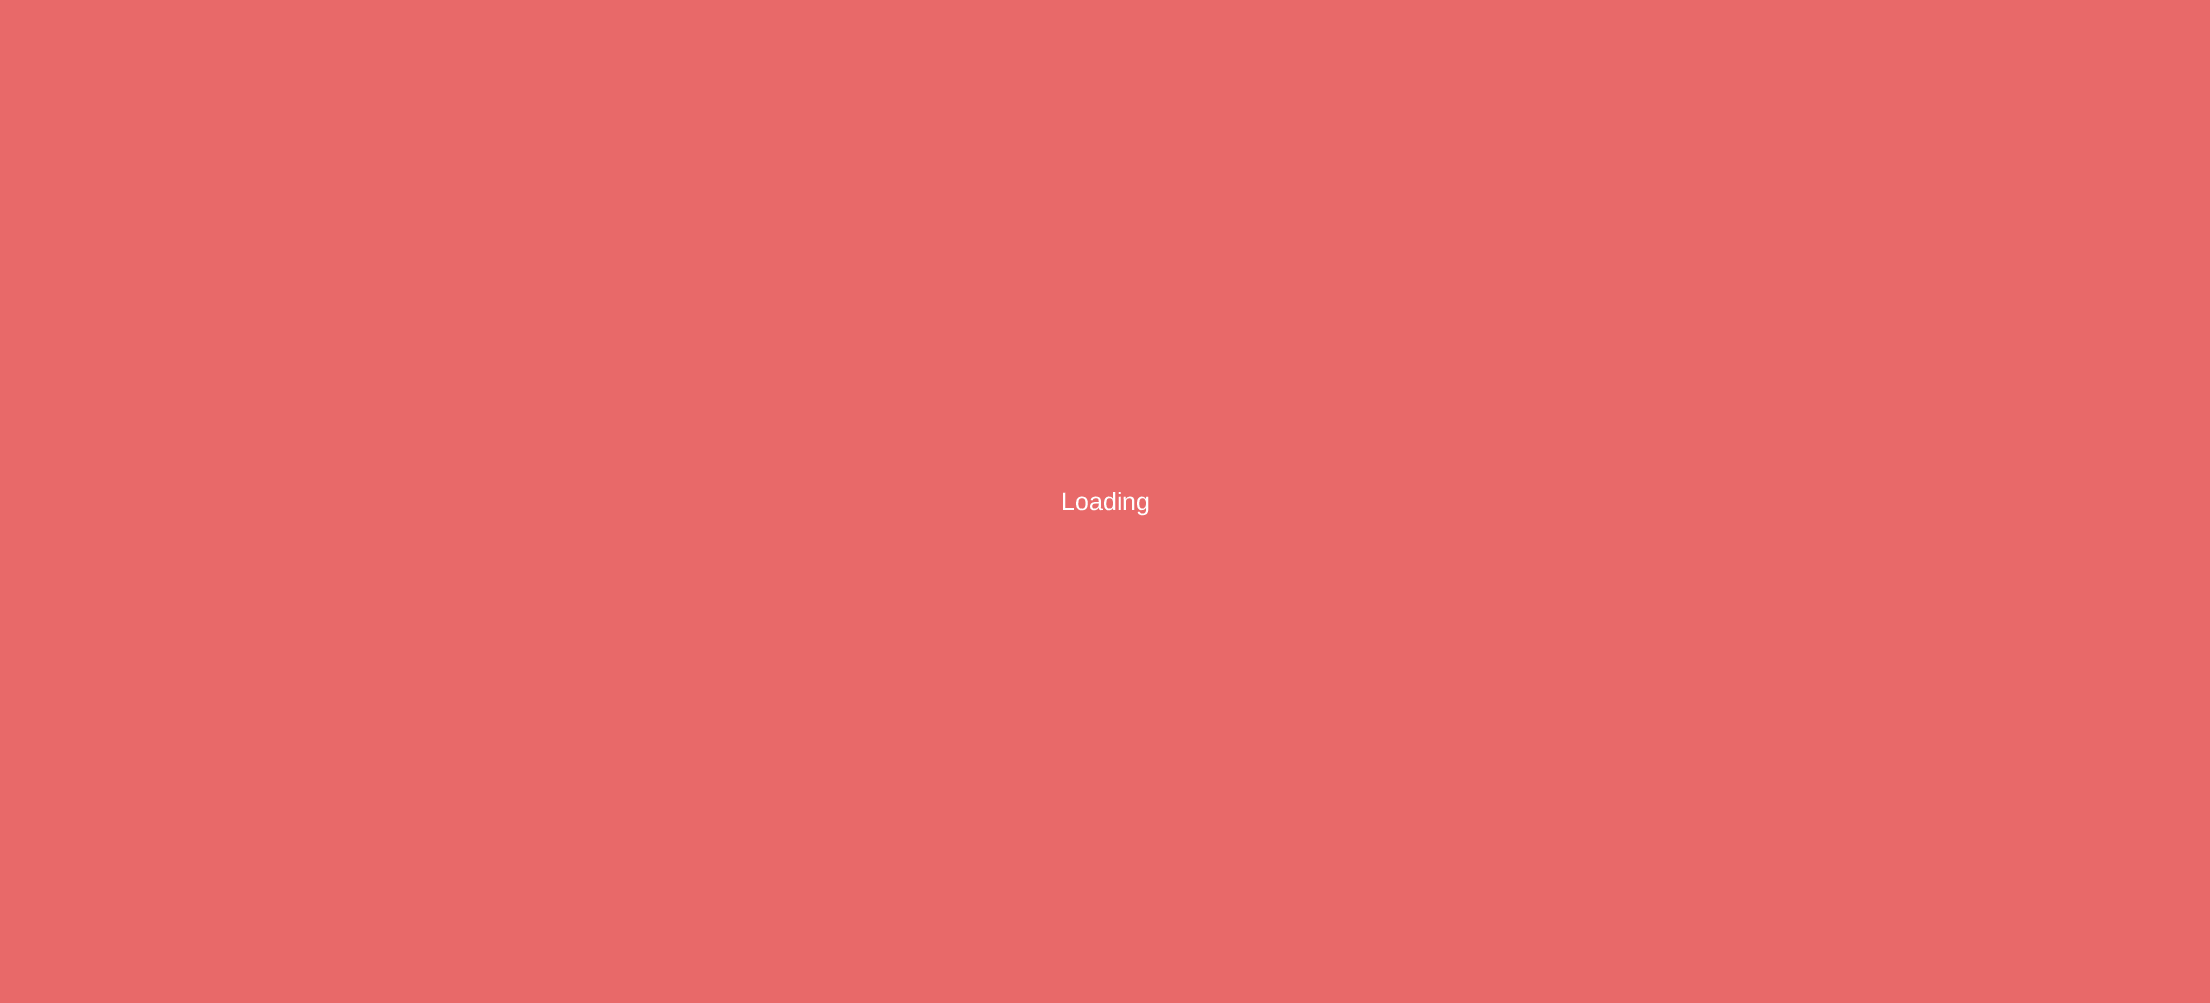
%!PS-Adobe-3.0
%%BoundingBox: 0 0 2210 1003
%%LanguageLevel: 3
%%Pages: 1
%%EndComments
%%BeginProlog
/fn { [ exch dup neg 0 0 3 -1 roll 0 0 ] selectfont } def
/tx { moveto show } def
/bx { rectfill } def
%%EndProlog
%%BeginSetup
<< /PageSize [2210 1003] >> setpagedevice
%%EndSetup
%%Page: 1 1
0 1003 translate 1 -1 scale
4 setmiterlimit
0.91 0.412 0.412 setrgbcolor
0 0 2210 1003 bx
/LiberationSans-Regular 25 fn
1 setgray
(Loading) 1061 510 tx
showpage
%%EOF
